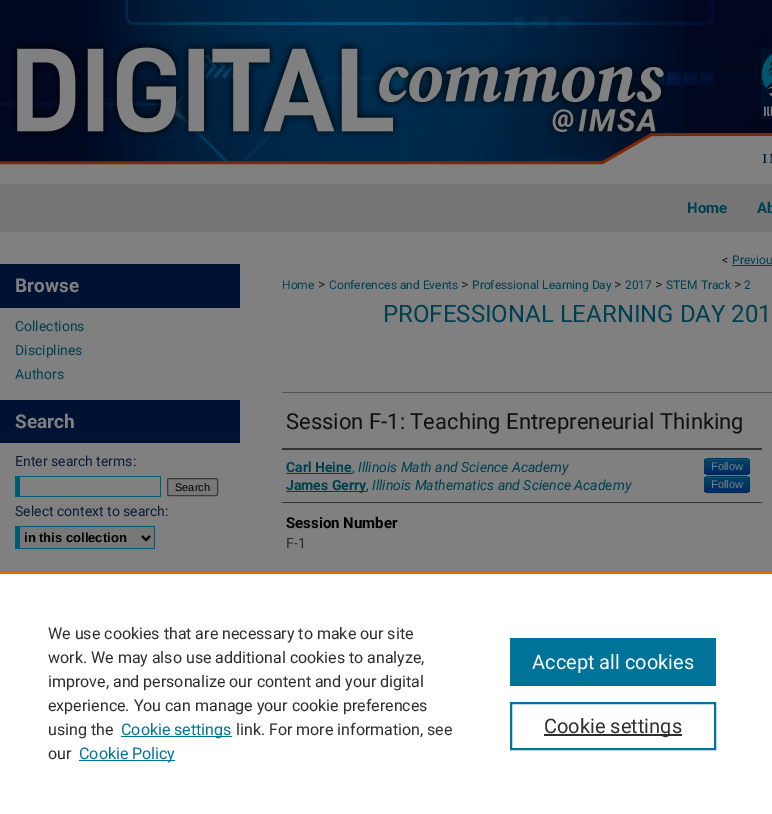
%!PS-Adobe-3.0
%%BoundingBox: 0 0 772 814
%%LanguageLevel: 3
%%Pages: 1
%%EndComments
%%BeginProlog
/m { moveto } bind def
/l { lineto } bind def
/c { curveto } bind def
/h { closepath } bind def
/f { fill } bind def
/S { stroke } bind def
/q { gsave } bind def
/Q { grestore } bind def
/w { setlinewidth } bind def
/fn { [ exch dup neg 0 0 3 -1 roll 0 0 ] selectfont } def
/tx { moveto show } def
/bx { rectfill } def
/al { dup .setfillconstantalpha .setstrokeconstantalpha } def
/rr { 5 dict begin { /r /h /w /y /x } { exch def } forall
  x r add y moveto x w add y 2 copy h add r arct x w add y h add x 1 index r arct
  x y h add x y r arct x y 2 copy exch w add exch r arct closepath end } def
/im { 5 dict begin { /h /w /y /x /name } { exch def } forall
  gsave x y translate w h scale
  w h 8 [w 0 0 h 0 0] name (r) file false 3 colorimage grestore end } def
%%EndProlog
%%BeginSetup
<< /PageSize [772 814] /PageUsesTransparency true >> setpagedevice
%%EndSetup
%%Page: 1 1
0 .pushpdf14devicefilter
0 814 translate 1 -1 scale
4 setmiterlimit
0.502 setgray
0 0 772 814 bx
(image0.raw) 0 0 772 232 im
(image1.raw) 10 40 762 123 im
(image2.raw) 761 49 11 70 im
/Roboto-Bold 15 fn
0 0.247 0.314 setrgbcolor
(Home) 687 213 tx
(Ab) 757 213 tx
0 0.071 0.204 setrgbcolor
0 264 240 44 bx
/Roboto-Bold 19 fn
0.502 setgray
(Browse) 15 292 tx
/Roboto-Regular 14 fn
0 0.247 0.314 setrgbcolor
(Collections) 15 331 tx
(Disciplines) 15 355 tx
(Authors) 15 379 tx
0 0.071 0.204 setrgbcolor
0 400 240 43 bx
/Roboto-Bold 19 fn
0.502 setgray
(Search) 15 428 tx
/Roboto-Regular 14 fn
0.051 0.106 0.204 setrgbcolor
(Enter search terms:) 15 466 tx
0 0.353 0.439 setrgbcolor
15 476 146 1 bx
160 476 1 21 bx
15 496 146 1 bx
15 476 5 21 bx
0.471 setgray
167.5 478.5 50 17 1.5 rr q f Q
0.231 setgray
S
/LiberationSans-Regular 11 fn
0 setgray
(Search) 175 491 tx
/Roboto-Regular 14 fn
0.051 0.106 0.204 setrgbcolor
(Select context to search:) 15 516 tx
0.471 setgray
20 527 134 21 bx
0 0.353 0.439 setrgbcolor
15 526 140 1 bx
154 526 1 23 bx
15 548 140 1 bx
15 526 5 23 bx
0 setgray
2 w
142 536 m 146 540 l 150 536 l S
/LiberationSans-Bold 13 fn
(in this collection) 24 542 tx
/Roboto-Regular 12 fn
0.067 setgray
(<) 722 264 tx
0 0.247 0.314 setrgbcolor
(Previou) 732 264 tx
732 265 40 1 bx
(Home) 282 289 tx
/Roboto-Regular 14 fn
0.153 setgray
(>) 318 289 tx
/Roboto-Regular 12 fn
0 0.247 0.314 setrgbcolor
(Conferences and Events) 329 289 tx
/Roboto-Regular 14 fn
0.153 setgray
(>) 461 289 tx
/Roboto-Regular 12 fn
0 0.247 0.314 setrgbcolor
(Professional Learning Day) 472 289 tx
/Roboto-Regular 14 fn
0.153 setgray
(>) 614 289 tx
/Roboto-Regular 12 fn
0 0.247 0.314 setrgbcolor
(2017) 625 289 tx
/Roboto-Regular 14 fn
0.153 setgray
(>) 655 289 tx
/Roboto-Regular 12 fn
0 0.247 0.314 setrgbcolor
(STEM Track) 666 289 tx
/Roboto-Regular 14 fn
0.153 setgray
(>) 734 289 tx
/Roboto-Regular 12 fn
0 0.247 0.314 setrgbcolor
(2) 744 289 tx
/Roboto-Regular 24 fn
(PROFESSIONAL LEARNING DAY 201) 383 322 tx
0.333 setgray
282 392 490 1 bx
/Roboto-Regular 22 fn
0.067 setgray
(Session F-1: Teaching Entrepreneurial Thinking) 286 429 tx
0.2 setgray
282 448 480 2 bx
282 502 480 1 bx
/Roboto-Bold 14 fn
0 0.247 0.314 setrgbcolor
(Carl Heine) 286 472 tx
286 473 66 1 bx
/Roboto-Regular 14 fn
(,) 352 472 tx
/Roboto-Italic 14 fn
(Illinois Math and Science Academy) 358 472 tx
0 0.227 0.4 setrgbcolor
704 458 46 17 4 rr f
q
704 458 46 17 4 rr clip newpath
q 704 459 m 750 459 l 750 474 l 704 474 l h clip newpath
<< /ShadingType 2 /ColorSpace /DeviceRGB /Coords [727 459 727 474] /Extend [true true] /Function << /FunctionType 2 /Domain [0 1] /C0 [0 0.267 0.4] /C1 [0 0.169 0.4] /N 1 >> >> shfill Q
Q
0.2 al
0.502 setgray
708 460 m 741 460 l 748 460 749 460 749 466 c 749 472 l 749 465 l 749 458 747 459 740 459 c 714 459 l 707 459 705 458 705 465 c 705 473 l 705 470 703 460 708 460 c h f
0.25 al
0 setgray
1 w
748.5 473.5 m 748 474 747 474.5 746 474.5 c 708 474.5 l 707 474.5 706 474 705.5 473.5 c S
0.1 al
705.5 473.5 m 704 471.5 704.5 468.5 704.5 466.5 c 704.5 457.5 705 458.5 714.5 458.5 c 739.5 458.5 l 749 458.5 749.5 457.5 749.5 466.5 c 749.5 468.5 750 471.5 748.5 473.5 c S
/LiberationSans-Regular 11 fn
1 al
0.502 setgray
(Follow) 711 470 tx
0 0.247 0.314 setrgbcolor
286 491 80 1 bx
/Roboto-Bold 14 fn
(James Gerry) 286 490 tx
/Roboto-Regular 14 fn
(,) 366 490 tx
/Roboto-Italic 14 fn
(Illinois Mathematics and Science Academy) 372 490 tx
0 0.227 0.4 setrgbcolor
704 476 46 17 4 rr f
q
704 476 46 17 4 rr clip newpath
q 704 477 m 750 477 l 750 492 l 704 492 l h clip newpath
<< /ShadingType 2 /ColorSpace /DeviceRGB /Coords [727 477 727 492] /Extend [true true] /Function << /FunctionType 2 /Domain [0 1] /C0 [0 0.267 0.4] /C1 [0 0.169 0.4] /N 1 >> >> shfill Q
Q
0.2 al
0.502 setgray
708 478 m 741 478 l 748 478 749 478 749 484 c 749 490 l 749 483 l 749 476 747 477 740 477 c 714 477 l 707 477 705 476 705 483 c 705 491 l 705 488 703 478 708 478 c h f
0.25 al
0 setgray
748.5 491.5 m 748 492 747 492.5 746 492.5 c 708 492.5 l 707 492.5 706 492 705.5 491.5 c S
0.1 al
705.5 491.5 m 704 489.5 704.5 486.5 704.5 484.5 c 704.5 475.5 705 476.5 714.5 476.5 c 739.5 476.5 l 749 476.5 749.5 475.5 749.5 484.5 c 749.5 486.5 750 489.5 748.5 491.5 c S
/LiberationSans-Regular 11 fn
1 al
0.502 setgray
(Follow) 711 488 tx
/Roboto-Bold 15 fn
0 setgray
(Session Number) 286 528 tx
/Roboto-Regular 14 fn
0.153 setgray
(F-1) 286 548 tx
1 setgray
0 574 772 240 bx
0.922 0.396 0 setrgbcolor
0 572 772 2 bx
/Roboto-Regular 16 fn
0.18 setgray
(We use cookies that are necessary to make our site) 48 639 tx
(work. We may also use additional cookies to analyze,) 48 663 tx
(improve, and personalize our content and your digital) 48 687 tx
(experience. You can manage your cookie preferences) 48 711 tx
(using the) 48 735 tx
0 0.451 0.596 setrgbcolor
121 736 111 1 bx
(Cookie settings) 121 735 tx
0.18 setgray
(link. For more information, see) 236 735 tx
(our) 48 759 tx
0 0.451 0.596 setrgbcolor
79 760 96 1 bx
(Cookie Policy) 79 759 tx
510 638 206 48 bx
/Roboto-Regular 20 fn
1 setgray
(Accept all cookies) 532 669 tx
0 0.451 0.596 setrgbcolor
2 w
511 703 204 46 rectstroke
0.18 setgray
544 734 138 2 bx
(Cookie settings) 544 733 tx
.poppdf14devicefilter showpage
%%EOF
